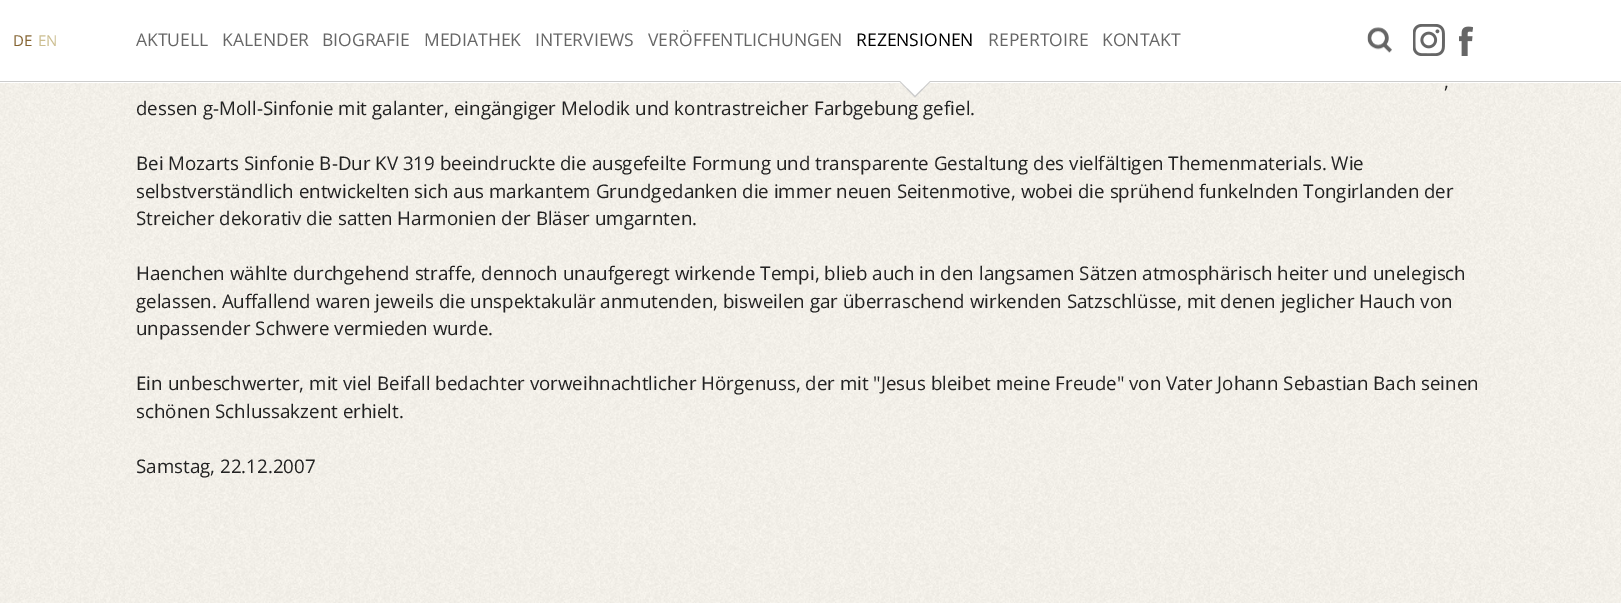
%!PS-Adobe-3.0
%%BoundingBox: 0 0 1621 603
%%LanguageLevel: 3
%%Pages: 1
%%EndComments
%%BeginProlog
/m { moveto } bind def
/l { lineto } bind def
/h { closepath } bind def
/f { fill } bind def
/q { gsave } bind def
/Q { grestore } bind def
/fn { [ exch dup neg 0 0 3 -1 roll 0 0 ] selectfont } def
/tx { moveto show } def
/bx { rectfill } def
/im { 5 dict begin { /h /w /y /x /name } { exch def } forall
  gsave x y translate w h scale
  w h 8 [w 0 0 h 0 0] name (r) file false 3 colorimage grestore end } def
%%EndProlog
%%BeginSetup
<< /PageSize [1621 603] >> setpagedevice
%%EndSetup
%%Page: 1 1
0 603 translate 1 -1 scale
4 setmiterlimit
1 setgray
0 0 1621 603 bx
(image0.raw) 0 83 1621 520 im
0.8 setgray
0 81 1621 1 bx
/OpenSans-Regular 15 fn
0.518 0.388 0.192 setrgbcolor
(DE) 13 46 tx
0.8 0.745 0.565 setrgbcolor
(EN) 38 46 tx
/OpenSans-Regular 17.5 fn
0.4 setgray
(AKTUELL) 136 46 tx
(KALENDER) 222 46 tx
(BIOGRAFIE) 322 46 tx
(MEDIATHEK) 424 46 tx
(INTERVIEWS) 535 46 tx
(VERÖFFENTLICHUNGEN) 648 46 tx
q
899 81 32 17 rectclip
0.796 setgray
915 97.5 m 899 81 l 915 65 l 931 81 l h f
1 setgray
899 79.5 m 915 63 l 931 79.5 l 915 95.5 l h f
Q
0 setgray
(REZENSIONEN) 856 46 tx
0.4 setgray
(REPERTOIRE) 988 46 tx
(KONTAKT) 1102 46 tx
(image1.raw) 1367 27 25 26 im
(image2.raw) 1413 24 32 32 im
(image3.raw) 1459 26 14 30 im
/OpenSans-Regular 18.75 fn
0.133 setgray
(,) 1444 88 tx
(dessen g-Moll-Sinfonie mit galanter, eingängiger Melodik und kontrastreicher Farbgebung gefiel.) 136 115 tx
(Bei Mozarts Sinfonie B-Dur KV 319 beeindruckte die ausgefeilte Formung und transparente Gestaltung des vielfältigen Themenmaterials. Wie) 136 170 tx
(selbstverständlich entwickelten sich aus markantem Grundgedanken die immer neuen Seitenmotive, wobei die sprühend funkelnden Tongirlanden der) 136 198 tx
(Streicher dekorativ die satten Harmonien der Bläser umgarnten.) 136 225 tx
(Haenchen wählte durchgehend straffe, dennoch unaufgeregt wirkende Tempi, blieb auch in den langsamen Sätzen atmosphärisch heiter und unelegisch) 136 280 tx
(gelassen. Auffallend waren jeweils die unspektakulär anmutenden, bisweilen gar überraschend wirkenden Satzschlüsse, mit denen jeglicher Hauch von) 136 308 tx
(unpassender Schwere vermieden wurde.) 136 335 tx
(Ein unbeschwerter, mit viel Beifall bedachter vorweihnachtlicher Hörgenuss, der mit "Jesus bleibet meine Freude" von Vater Johann Sebastian Bach seinen) 136 390 tx
(schönen Schlussakzent erhielt.) 136 418 tx
(Samstag, 22.12.2007) 136 473 tx
showpage
%%EOF
